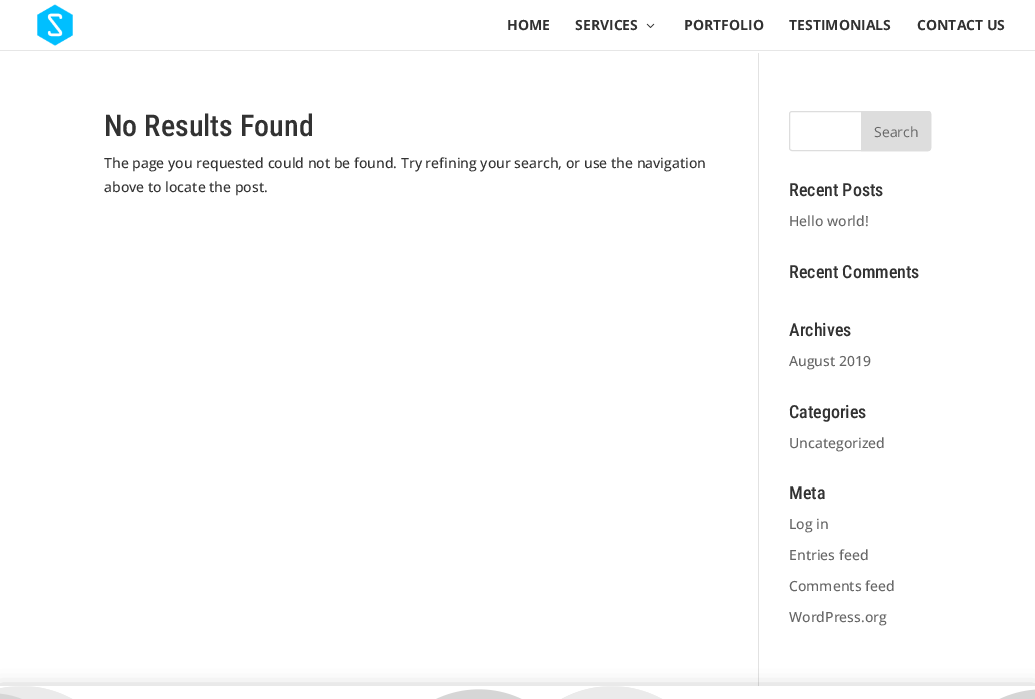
%!PS-Adobe-3.0
%%BoundingBox: 0 0 1035 699
%%LanguageLevel: 3
%%Pages: 1
%%EndComments
%%BeginProlog
/m { moveto } bind def
/l { lineto } bind def
/c { curveto } bind def
/h { closepath } bind def
/f { fill } bind def
/S { stroke } bind def
/q { gsave } bind def
/Q { grestore } bind def
/fn { [ exch dup neg 0 0 3 -1 roll 0 0 ] selectfont } def
/tx { moveto show } def
/bx { rectfill } def
/al { dup .setfillconstantalpha .setstrokeconstantalpha } def
/rr { 5 dict begin { /r /h /w /y /x } { exch def } forall
  x r add y moveto x w add y 2 copy h add r arct x w add y h add x 1 index r arct
  x y h add x y r arct x y 2 copy exch w add exch r arct closepath end } def
/sh { 12 dict begin { /a /b /q /h /w /y /x } { exch def } forall gsave /was 0 def
  9 -2 -9 { dup b mul 4 div /e exch def 1 sub .425 mul 2.718 exch exp 1 add a .99 .min exch div /now exch def
    1 1 now sub 1 was sub div sub al /was now def
    w h .min e 2 mul add 0 gt { x e sub y e sub w e 2 mul add h e 2 mul add
      q e add b .6 mul add w h .min 2 div e add .min 0 .max rr fill } if } for grestore end } def
/im { 5 dict begin { /h /w /y /x /name } { exch def } forall
  gsave x y translate w h scale
  w h 8 [w 0 0 h 0 0] name (r) file false 3 colorimage grestore end } def
%%EndProlog
%%BeginSetup
<< /PageSize [1035 699] /PageUsesTransparency true >> setpagedevice
%%EndSetup
%%Page: 1 1
0 .pushpdf14devicefilter
0 699 translate 1 -1 scale
4 setmiterlimit
1 setgray
0 0 1035 699 bx
0.902 setgray
0 50 1035 1 bx
(image0.raw) 37 4 36 42 im
/OpenSans-Bold 14 fn
0.196 setgray
(HOME) 507 30 tx
(SERVICES) 575 30 tx
(image1.raw) 646 23 9 5 im
(PORTFOLIO) 684 30 tx
(TESTIMONIALS) 789 30 tx
(CONTACT US) 917 30 tx
0.886 setgray
758 53 1 634 bx
/RobotoCondensed-Medium 30 fn
0.196 setgray
(No Results Found) 104 136 tx
/OpenSans-Medium 14 fn
(The page you requested could not be found. Try refining your search, or use the navigation) 104 168 tx
(above to locate the post.) 104 192 tx
0.867 setgray
789.5 111.5 141 39 2.5 rr S
861.5 111.5 m 928 111.5 l 929.5 111.5 930.5 112.5 930.5 114 c 930.5 148 l 930.5 149.5 929.5 150.5 928 150.5 c 861.5 150.5 l h q f Q
S
/OpenSans-Regular 14 fn
0.4 setgray
(Search) 874 137 tx
/RobotoCondensed-Medium 18 fn
0.196 setgray
(Recent Posts) 789 196 tx
/OpenSans-Medium 14 fn
0.4 setgray
(Hello world!) 789 226 tx
/RobotoCondensed-Medium 18 fn
0.196 setgray
(Recent Comments) 789 278 tx
(Archives) 789 336 tx
/OpenSans-Medium 14 fn
0.4 setgray
(August 2019) 789 366 tx
/RobotoCondensed-Medium 18 fn
0.196 setgray
(Categories) 789 418 tx
/OpenSans-Medium 14 fn
0.4 setgray
(Uncategorized) 789 448 tx
/RobotoCondensed-Medium 18 fn
0.196 setgray
(Meta) 789 499 tx
/OpenSans-Medium 14 fn
0.4 setgray
(Log in) 789 529 tx
(Entries feed) 789 560 tx
(Comments feed) 789 591 tx
(WordPress.org) 789 622 tx
0 setgray
0 689 1035 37 0 9 0.3 sh
0.839 setgray
0 687 1035 12 bx
(image2.raw) 0 686 1035 13 im
.poppdf14devicefilter showpage
%%EOF
